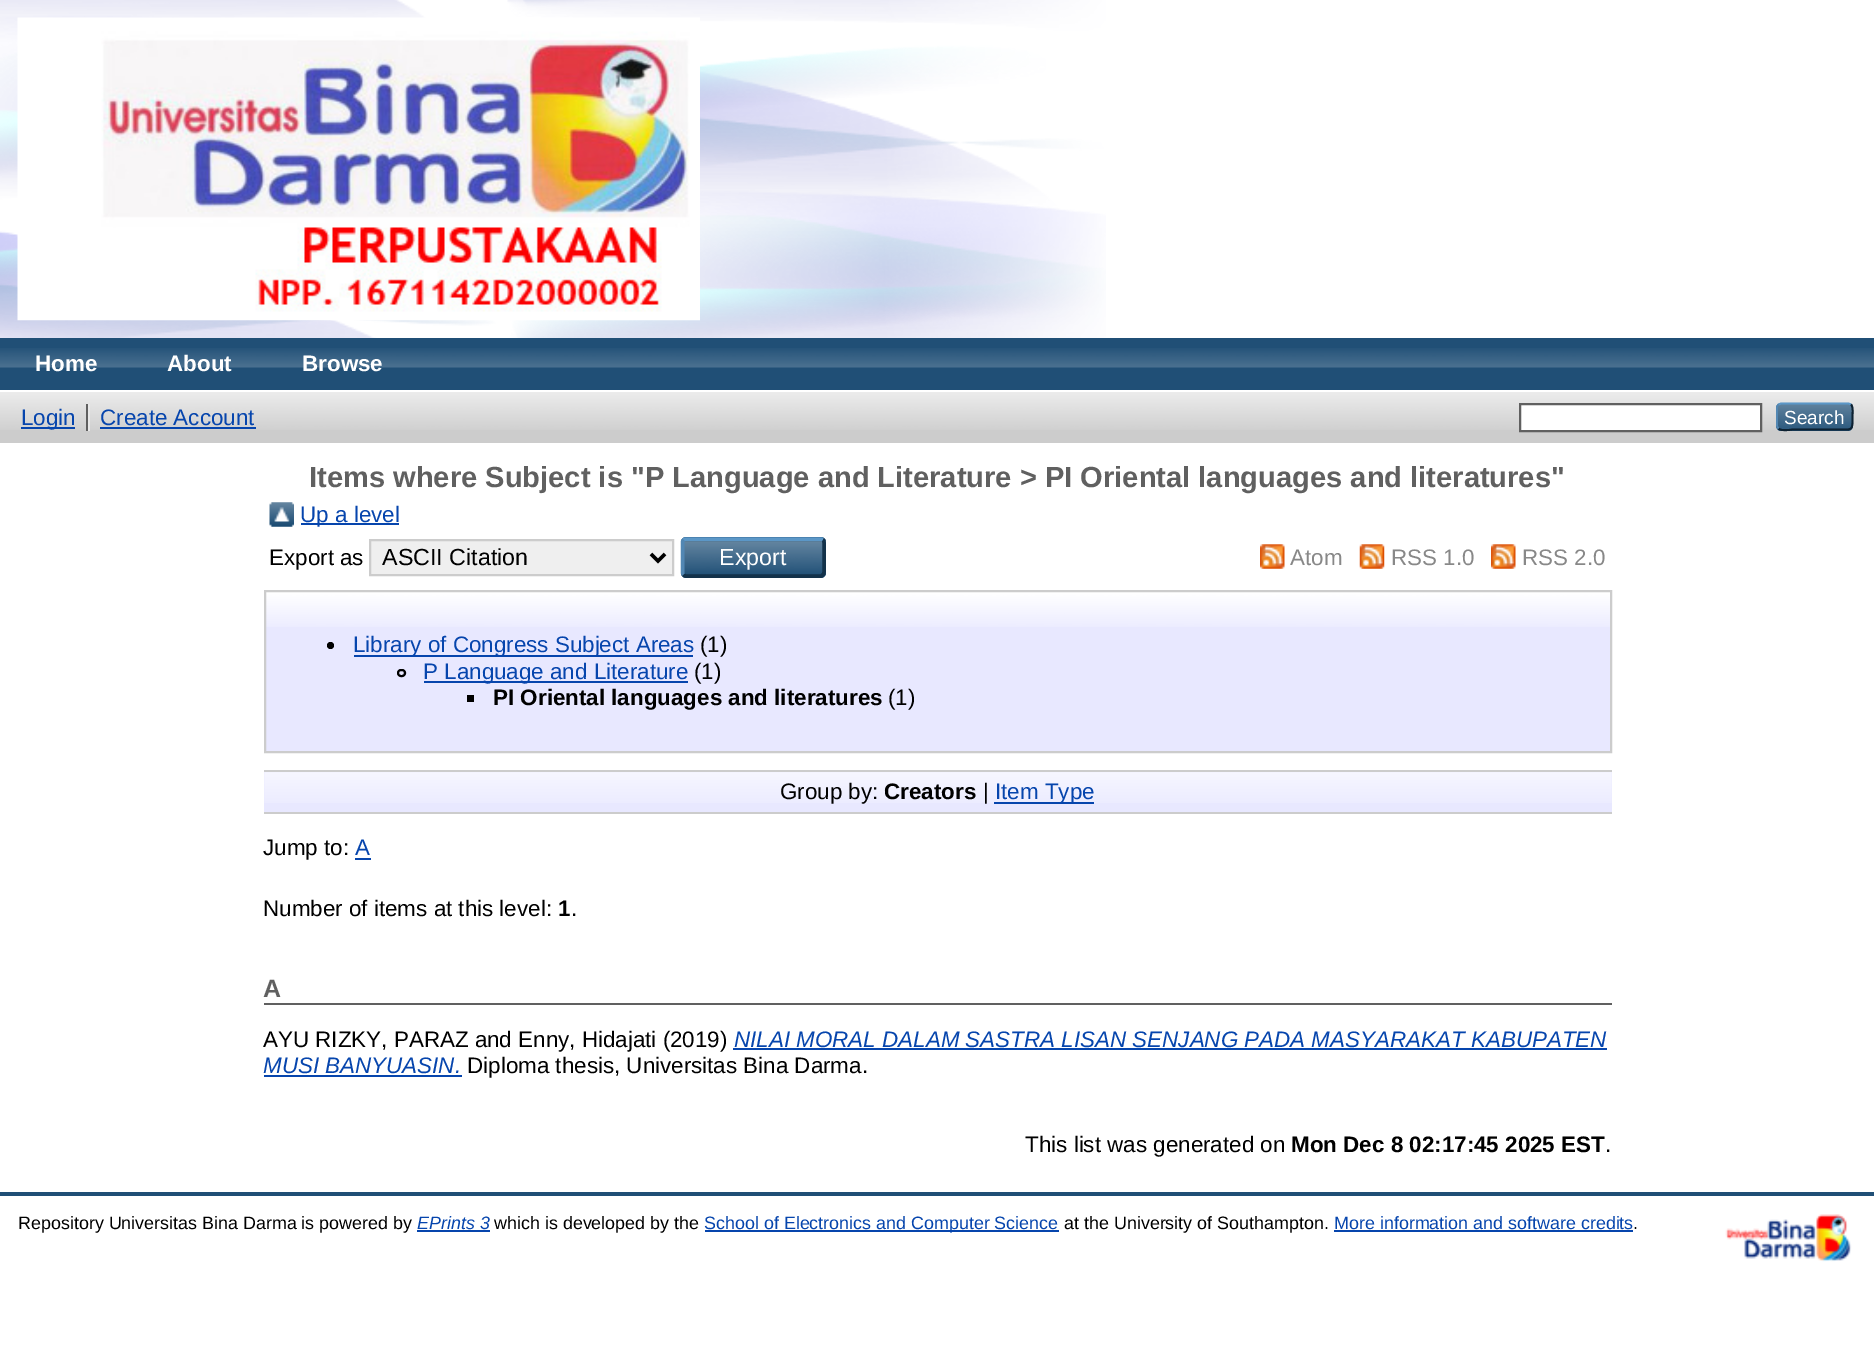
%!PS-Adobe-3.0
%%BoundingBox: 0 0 1874 1356
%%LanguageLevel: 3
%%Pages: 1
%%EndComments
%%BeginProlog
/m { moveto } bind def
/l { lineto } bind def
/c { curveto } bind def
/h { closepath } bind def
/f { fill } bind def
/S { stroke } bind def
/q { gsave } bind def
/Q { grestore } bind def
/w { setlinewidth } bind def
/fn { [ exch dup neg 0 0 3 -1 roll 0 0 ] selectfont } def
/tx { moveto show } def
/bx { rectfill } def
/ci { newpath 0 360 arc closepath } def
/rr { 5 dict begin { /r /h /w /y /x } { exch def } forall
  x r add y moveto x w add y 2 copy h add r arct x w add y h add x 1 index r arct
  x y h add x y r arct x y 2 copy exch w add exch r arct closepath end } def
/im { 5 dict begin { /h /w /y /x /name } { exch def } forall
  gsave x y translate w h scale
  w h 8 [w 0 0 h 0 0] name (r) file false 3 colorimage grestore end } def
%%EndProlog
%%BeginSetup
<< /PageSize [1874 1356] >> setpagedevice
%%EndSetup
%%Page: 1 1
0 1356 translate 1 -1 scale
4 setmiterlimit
1 setgray
0 0 1874 1356 bx
(image0.raw) 0 0 1106 338 im
(image1.raw) 17 17 683 304 im
0.125 0.31 0.463 setrgbcolor
0 338 1874 52 bx
(image2.raw) 0 348 1874 20 im
/LiberationSans-Bold 22.4 fn
1 setgray
(Home) 35 371 tx
(About) 167 371 tx
(Browse) 302 371 tx
0.8 setgray
0 392 1874 51 bx
(image3.raw) 0 392 1874 38 im
0.024 0.271 0.678 setrgbcolor
21 427 54 2 bx
/LiberationSans-Regular 22.4 fn
(Login) 21 425 tx
0.376 setgray
86 404 2 27 bx
0.024 0.271 0.678 setrgbcolor
(Create Account) 100 425 tx
0.91 setgray
88 404 2 27 bx
0.024 0.271 0.678 setrgbcolor
100 427 156 2 bx
1 setgray
1520 404 m 1761 404 l 1761 431 l 1520 431 l h q f Q
0.376 setgray
2 w
S
0.122 0.31 0.463 setrgbcolor
1776 403 77 28 5 rr f
(image4.raw) 1776 403 77 27 im
0.357 0.592 0.78 setrgbcolor
1.8 w
1778.5 404.5 m 1781 403.5 l 1848.5 403.5 l 1851 404.5 l S
0.051 0.129 0.192 setrgbcolor
1851 404.5 m 1853.5 407 1852.5 413.5 1852.5 416.5 c 1852.5 431.5 1853 429.5 1837 429.5 c 1792.5 429.5 l 1792 429.5 1781.5 431.5 1778.5 428.5 c S
0.322 0.529 0.702 setrgbcolor
1778.5 428.5 m 1777.5 427.5 1777 426.5 1777 425 c 1777 408 l 1777 406.5 1777.5 405.5 1778.5 404.5 c S
/LiberationSans-Regular 19 fn
1 setgray
(Search) 1784 424 tx
/LiberationSans-Bold 29.1 fn
0.376 setgray
(Items where Subject is "P Language and Literature > PI Oriental languages and literatures") 309 487 tx
(image5.raw) 269 502 25 25 im
0.024 0.271 0.678 setrgbcolor
301 523 98 2 bx
/LiberationSans-Regular 22.4 fn
(Up a level) 300 522 tx
0 setgray
(Export as) 269 565 tx
0.937 setgray
370 540 m 673 540 l 673 575 l 370 575 l h q f Q
0.8 setgray
2 w
S
0 setgray
3.5 w
651 554 m 658 561 l 665 554 l S
/LiberationSans-Regular 23.25 fn
(ASCII Citation) 382 565 tx
0.122 0.31 0.463 setrgbcolor
681 537 145 41 5 rr f
(image6.raw) 681 540 145 34 im
0.357 0.592 0.78 setrgbcolor
683.5 540 m 684 539.5 685 539 686 539 c 821 539 l 821.5 539 822.5 539.5 823 540 c S
0.075 0.196 0.29 setrgbcolor
823 540 m 824 540.5 824 541.5 824 542.5 c 824 572 l 824 573 824 574 823 574.5 c 822.5 575.5 821.5 576 821 576 c 686 576 l 685 576 684 575.5 683.5 574.5 c S
0.322 0.529 0.702 setrgbcolor
683.5 574.5 m 683 574 682.5 573 682.5 572 c 682.5 542.5 l 682.5 541.5 683 540.5 683.5 540 c S
1 setgray
(Export) 719 565 tx
(image7.raw) 1260 544 25 25 im
/LiberationSans-Regular 22.4 fn
0.533 setgray
(Atom) 1290 565 tx
(image8.raw) 1359 544 26 25 im
(RSS 1.0) 1391 565 tx
(image9.raw) 1491 544 25 25 im
(RSS 2.0) 1522 565 tx
0.91 0.91 1 setrgbcolor
266 593 1344 158 bx
(image10.raw) 266 592 1344 35 im
0.8 setgray
2 w
265 591 1346 161 rectstroke
0 setgray
330.5 645.5 3.5 ci f
0.024 0.271 0.678 setrgbcolor
354 655 339 2 bx
(Library of Congress Subject Areas) 353 652 tx
0 setgray
(\(1\)) 700 652 tx
398 670 7 6 3 rr S
0.024 0.271 0.678 setrgbcolor
424 681 264 2 bx
(P Language and Literature) 423 679 tx
0 setgray
(\(1\)) 694 679 tx
467 695 7 7 bx
/LiberationSans-Bold 22.4 fn
(PI Oriental languages and literatures) 493 705 tx
/LiberationSans-Regular 22.4 fn
(\(1\)) 888 705 tx
0.91 0.91 1 setrgbcolor
264 772 1348 40 bx
(image11.raw) 264 772 1348 31 im
0.8 setgray
264 770 1348 2 bx
264 812 1348 2 bx
0 setgray
(Group by:) 780 799 tx
/LiberationSans-Bold 22.4 fn
(Creators) 884 799 tx
/LiberationSans-Regular 22.4 fn
(|) 983 799 tx
0.024 0.271 0.678 setrgbcolor
994 802 100 2 bx
(Item Type) 995 799 tx
0 setgray
(Jump to:) 263 855 tx
0.024 0.271 0.678 setrgbcolor
(A) 355 855 tx
355 858 16 2 bx
0 setgray
(Number of items at this level:) 263 916 tx
/LiberationSans-Bold 22.4 fn
(1) 558 916 tx
/LiberationSans-Regular 22.4 fn
(.) 571 916 tx
0.376 setgray
264 1003 1348 2 bx
/LiberationSans-Bold 25 fn
(A) 263 997 tx
/LiberationSans-Regular 22.4 fn
0 setgray
(AYU RIZKY, PARAZ and Enny, Hidajati \(2019\)) 263 1047 tx
/LiberationSans-Italic 22.4 fn
0.024 0.271 0.678 setrgbcolor
(NILAI MORAL DALAM SASTRA LISAN SENJANG PADA MASYARAKAT KABUPATEN) 734 1047 tx
733 1048 874 2 bx
(MUSI BANYUASIN.) 263 1073 tx
264 1075 198 2 bx
/LiberationSans-Regular 22.4 fn
0 setgray
(Diploma thesis, Universitas Bina Darma.) 467 1073 tx
(This list was generated on) 1025 1152 tx
/LiberationSans-Bold 22.4 fn
(Mon Dec 8 02:17:45 2025 EST) 1291 1152 tx
/LiberationSans-Regular 22.4 fn
(.) 1605 1152 tx
0.125 0.31 0.463 setrgbcolor
0 1192 1874 4 bx
/LiberationSans-Regular 17.9 fn
0 setgray
(Repository Universitas Bina Darma is powered by) 18 1229 tx
/LiberationSans-Italic 17.9 fn
0.024 0.271 0.678 setrgbcolor
(EPrints 3) 417 1229 tx
417 1230 73 2 bx
/LiberationSans-Regular 17.9 fn
0 setgray
(which is developed by the) 494 1229 tx
0.024 0.271 0.678 setrgbcolor
705 1230 354 2 bx
(School of Electronics and Computer Science) 704 1229 tx
0 setgray
(at the University of Southampton.) 1064 1229 tx
0.024 0.271 0.678 setrgbcolor
(More information and software credits) 1334 1229 tx
1334 1230 299 2 bx
0 setgray
(.) 1633 1229 tx
(image12.raw) 1725 1214 127 48 im
showpage
%%EOF
